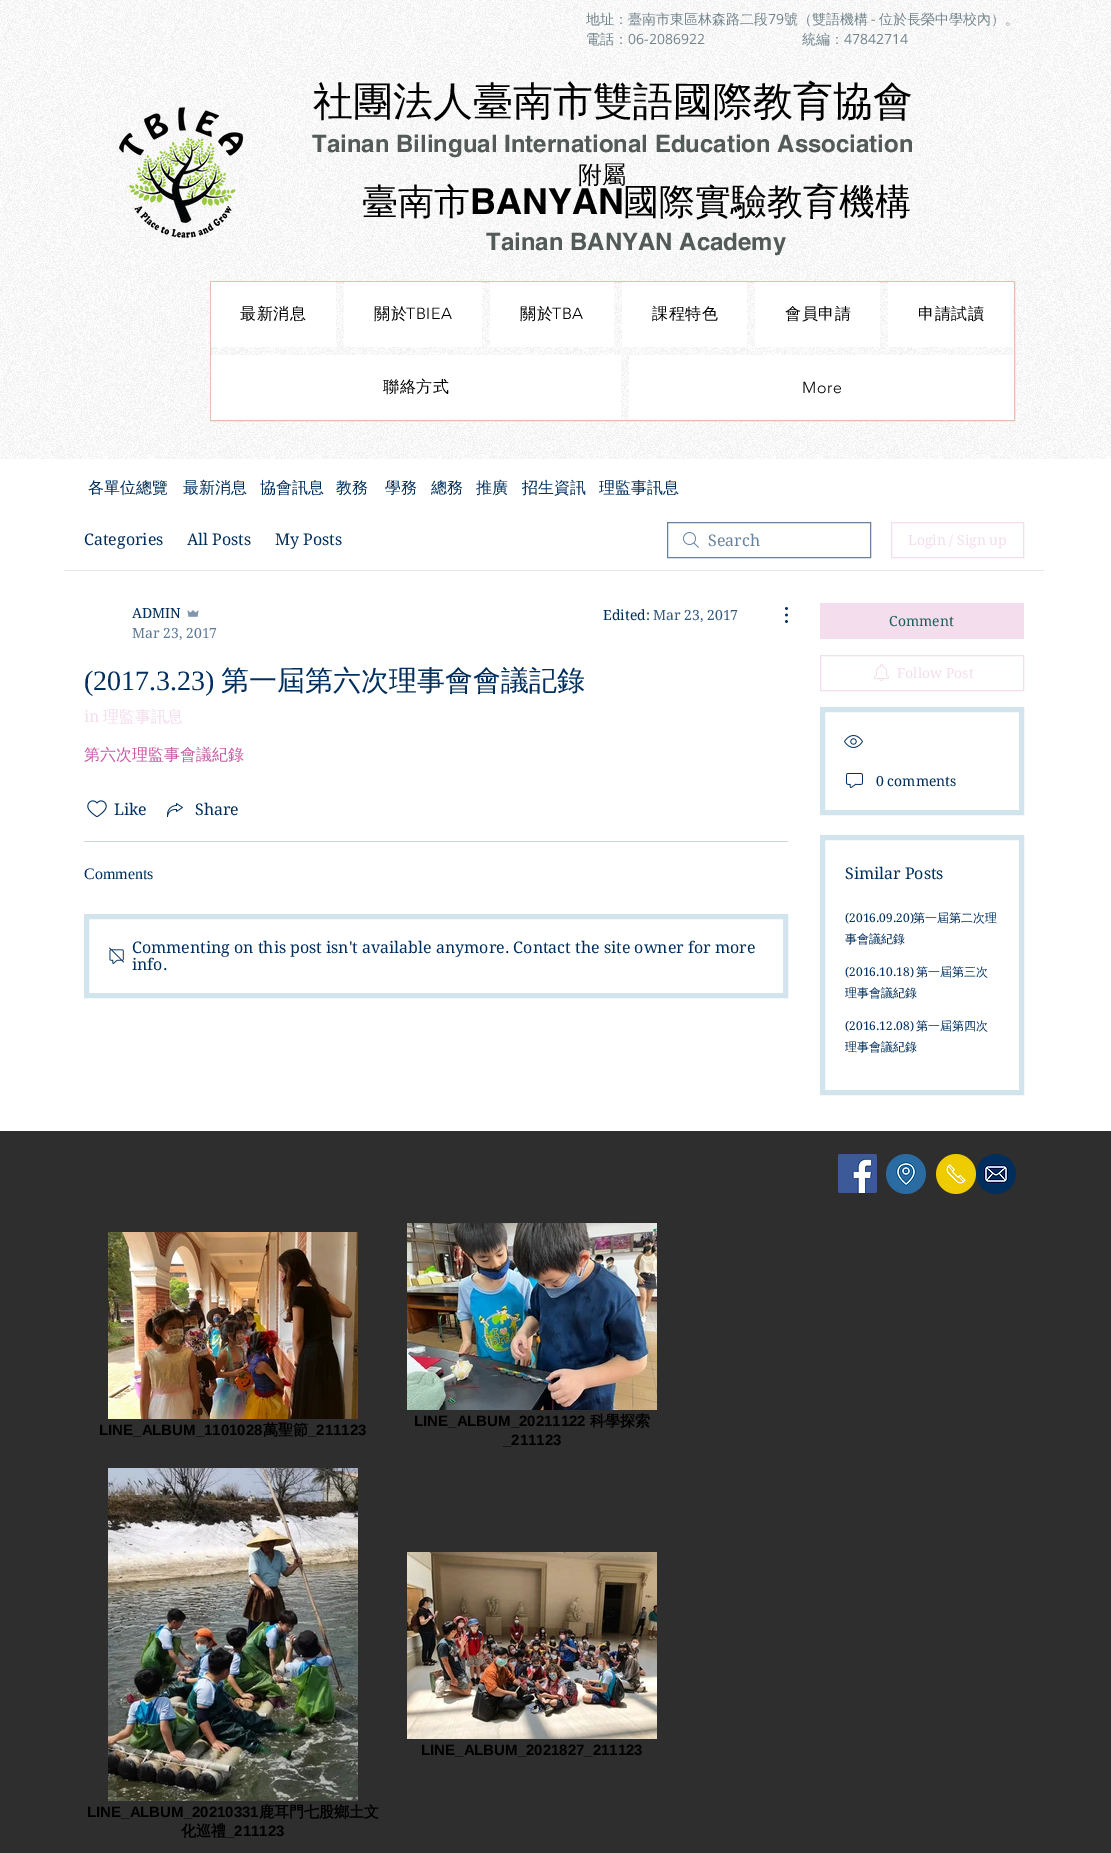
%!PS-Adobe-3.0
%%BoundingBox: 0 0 1111 1853
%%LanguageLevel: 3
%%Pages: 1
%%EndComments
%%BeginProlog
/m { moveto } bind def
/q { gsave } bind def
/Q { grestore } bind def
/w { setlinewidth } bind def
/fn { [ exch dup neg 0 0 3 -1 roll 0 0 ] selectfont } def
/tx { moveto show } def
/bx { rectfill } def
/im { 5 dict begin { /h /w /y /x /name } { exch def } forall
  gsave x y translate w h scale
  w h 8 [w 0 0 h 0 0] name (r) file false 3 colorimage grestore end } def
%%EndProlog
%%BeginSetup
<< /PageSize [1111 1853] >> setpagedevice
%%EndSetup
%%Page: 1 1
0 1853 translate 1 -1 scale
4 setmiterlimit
1 setgray
0 0 1111 1853 bx
(image0.raw) 0 0 1111 459 im
/WenQuanYiZenHei-Medium 14 fn
0.447 0.522 0.549 setrgbcolor
(地址：臺南市東區林森路二段) 586 24 tx
/OpenSans-Regular 14 fn
(79) 768 24 tx
/WenQuanYiZenHei-Medium 14 fn
(號（雙語機構) 784 24 tx
/OpenSans-Regular 14 fn
(-) 871 24 tx
/WenQuanYiZenHei-Medium 14 fn
(位於長榮中學校內）。) 879 24 tx
(電話：) 586 44 tx
/OpenSans-Regular 14 fn
(06-2086922) 628 44 tx
/WenQuanYiZenHei-Medium 14 fn
(統編：) 802 44 tx
/OpenSans-Regular 14 fn
(47842714) 844 44 tx
(image1.raw) 119 107 125 131 im
/WenQuanYiZenHei-Medium 40 fn
0 setgray
(社團法人臺南市雙語國際教育協會) 313 115 tx
/helvetica-Bold 24 fn
0.325 0.357 0.345 setrgbcolor
(Tainan Bilingual International Education Association) 312 152 tx
/WenQuanYiZenHei-Medium 24 fn
0 setgray
(附屬) 578 183 tx
/WenQuanYiZenHei-Medium 36 fn
(臺南市) 362 214 tx
/helvetica-Bold 36 fn
(BANYAN) 470 214 tx
/WenQuanYiZenHei-Medium 36 fn
(國際實驗教育機構) 623 214 tx
/helvetica-Bold 24 fn
0.325 0.357 0.345 setrgbcolor
(Tainan BANYAN Academy) 486 250 tx
0.894 0.749 0.678 setrgbcolor
210.5 281.5 804 139 rectstroke
1 setgray
211 282 125 65 bx
/WenQuanYiZenHei-Medium 16 fn
0 setgray
240 319 m 0.5 0 (最新消息) ashow
1 setgray
344 282 138 65 bx
0 setgray
374 319 m 0.5 0 (關於) ashow
/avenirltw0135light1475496-Light 16 fn
406 319 m 0.5 0 (TBIEA) ashow
1 setgray
490 282 124 65 bx
/WenQuanYiZenHei-Medium 16 fn
0 setgray
520 319 m 0.5 0 (關於) ashow
/avenirltw0135light1475496-Light 16 fn
552 319 m 0.5 0 (TBA) ashow
1 setgray
622 282 125 65 bx
/WenQuanYiZenHei-Medium 16 fn
0 setgray
652 319 m 0.5 0 (課程特色) ashow
1 setgray
755 282 125 65 bx
0 setgray
785 319 m 0.5 0 (會員申請) ashow
1 setgray
888 282 125 65 bx
0 setgray
918 319 m 0.5 0 (申請試讀) ashow
1 setgray
211 355 410 65 bx
0 setgray
383 392 m 0.5 0 (聯絡方式) ashow
1 setgray
629 355 385 65 bx
/avenirltw0135light1475496-Light 16 fn
0 setgray
802 393 m 0.5 0 (More) ashow
/WenQuanYiZenHei-Medium 16 fn
0 0.18 0.365 setrgbcolor
(各單位總覽) 88 493 tx
(最新消息) 183 493 tx
(協會訊息) 260 493 tx
(教務) 336 493 tx
(學務) 385 493 tx
(總務) 431 493 tx
(推廣) 476 493 tx
(招生資訊) 522 493 tx
(理監事訊息) 599 493 tx
0.89 0.906 0.91 setrgbcolor
64 570 980 1 bx
/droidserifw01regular-Regular 16 fn
0 0.18 0.365 setrgbcolor
(Categories) 84 545 tx
(All Posts) 187 545 tx
(My Posts) 275 545 tx
(image2.raw) 683 532 16 16 im
0.4 0.51 0.62 setrgbcolor
667.5 522.5 203 35 rectstroke
(Search) 708 546 tx
0.957 0.871 0.929 setrgbcolor
891.5 522.5 132 35 rectstroke
/droidserifw01regular-Regular 14 fn
(Login / Sign up) 908 545 tx
0 0.18 0.365 setrgbcolor
(ADMIN) 132 618 tx
(image3.raw) 187 610 12 7 im
0.361 0.475 0.592 setrgbcolor
(Mar 23, 2017) 132 638 tx
0 0.18 0.365 setrgbcolor
(Edited:) 603 620 tx
0.2 0.345 0.49 setrgbcolor
(Mar 23, 2017) 653 620 tx
(image4.raw) 785 607 3 16 im
/LiberationSerif-Regular 28 fn
0 0.18 0.365 setrgbcolor
(\(2017.3.23\)) 84 690 tx
/WenQuanYiZenHei-Medium 28 fn
(第一屆第六次理事會會議記錄) 221 690 tx
/droidserifw01regular-Regular 16 fn
0.957 0.871 0.929 setrgbcolor
(in) 84 722 tx
/WenQuanYiZenHei-Medium 16 fn
(理監事訊息) 103 722 tx
0.776 0.353 0.647 setrgbcolor
(第六次理監事會議紀錄) 84 760 tx
(image5.raw) 87 800 20 18 im
/droidserifw01regular-Regular 16 fn
0 0.18 0.365 setrgbcolor
(Like) 114 815 tx
(image6.raw) 167 803 16 14 im
(Share) 195 815 tx
0.8 0.835 0.875 setrgbcolor
84 841 704 1 bx
/LiberationSerif-Regular 16 fn
0 0.18 0.365 setrgbcolor
(Comments) 84 879 tx
0.824 0.898 0.933 setrgbcolor
5 w
86.5 916.5 699 79 rectstroke
(image7.raw) 109 947 15 17 im
/droidserifw01regular-Regular 16 fn
0 0.18 0.365 setrgbcolor
(Commenting on this post isn't available anymore. Contact the site owner for more) 132 953 tx
(info.) 132 970 tx
0.957 0.871 0.929 setrgbcolor
820 603 204 36 bx
/droidserifw01regular-Regular 14 fn
0.118 0.369 0.353 setrgbcolor
(Comment) 889 626 tx
0.957 0.871 0.929 setrgbcolor
1 w
820.5 655.5 203 35 rectstroke
(image8.raw) 874 664 15 17 im
(Follow Post) 897 678 tx
0.824 0.898 0.933 setrgbcolor
5 w
822.5 709.5 199 103 rectstroke
(image9.raw) 844 735 19 13 im
(image10.raw) 846 773 17 15 im
0 0.18 0.365 setrgbcolor
(0 comments) 876 786 tx
0.824 0.898 0.933 setrgbcolor
822.5 837.5 199 255 rectstroke
/droidserifw01regular-Regular 16 fn
0 0.18 0.365 setrgbcolor
(Similar Posts) 845 879 tx
/droidserifw01regular-Regular 12 fn
(\(2016.09.20\)) 845 922 tx
/WenQuanYiZenHei-Medium 12 fn
(第一屆第二次理) 913 922 tx
(事會議紀錄) 845 943 tx
/droidserifw01regular-Regular 12 fn
(\(2016.10.18\)) 845 976 tx
/WenQuanYiZenHei-Medium 12 fn
(第一屆第三次) 916 976 tx
q
845 962 154 42 rectclip
(理事會議紀錄) 845 997 tx
Q
/droidserifw01regular-Regular 12 fn
(\(2016.12.08\)) 845 1030 tx
/WenQuanYiZenHei-Medium 12 fn
(第一屆第四次) 916 1030 tx
q
845 1016 154 42 rectclip
(理事會議紀錄) 845 1051 tx
Q
0.184 0.18 0.18 setrgbcolor
0 1131 1111 722 bx
(image11.raw) 838 1154 39 39 im
(image12.raw) 886 1154 40 40 im
(image13.raw) 936 1154 40 40 im
(image14.raw) 976 1154 40 40 im
(image15.raw) 108 1232 250 187 im
/LiberationSans-Bold 15 fn
0 setgray
(LINE_ALBUM_1101028) 99 1435 tx
/WenQuanYiZenHei-Bold 15 fn
(萬聖節) 263 1435 tx
/LiberationSans-Bold 15 fn
(_211123) 308 1435 tx
(image16.raw) 407 1223 250 187 im
(LINE_ALBUM_20211122) 414 1426 tx
/WenQuanYiZenHei-Bold 15 fn
(科學探索) 590 1426 tx
/LiberationSans-Bold 15 fn
(_211123) 503 1445 tx
(image17.raw) 407 1552 250 187 im
(LINE_ALBUM_2021827_211123) 421 1755 tx
(image18.raw) 108 1468 250 333 im
(LINE_ALBUM_20210331) 87 1817 tx
/WenQuanYiZenHei-Bold 15 fn
(鹿耳門七股鄉土文) 259 1817 tx
(化巡禮) 181 1836 tx
/LiberationSans-Bold 15 fn
(_211123) 226 1836 tx
showpage
%%EOF
